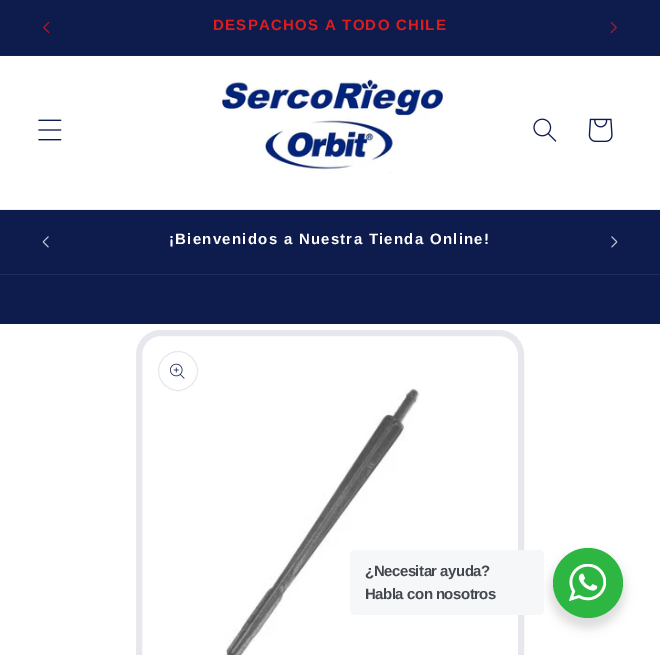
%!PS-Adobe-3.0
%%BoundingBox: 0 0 660 655
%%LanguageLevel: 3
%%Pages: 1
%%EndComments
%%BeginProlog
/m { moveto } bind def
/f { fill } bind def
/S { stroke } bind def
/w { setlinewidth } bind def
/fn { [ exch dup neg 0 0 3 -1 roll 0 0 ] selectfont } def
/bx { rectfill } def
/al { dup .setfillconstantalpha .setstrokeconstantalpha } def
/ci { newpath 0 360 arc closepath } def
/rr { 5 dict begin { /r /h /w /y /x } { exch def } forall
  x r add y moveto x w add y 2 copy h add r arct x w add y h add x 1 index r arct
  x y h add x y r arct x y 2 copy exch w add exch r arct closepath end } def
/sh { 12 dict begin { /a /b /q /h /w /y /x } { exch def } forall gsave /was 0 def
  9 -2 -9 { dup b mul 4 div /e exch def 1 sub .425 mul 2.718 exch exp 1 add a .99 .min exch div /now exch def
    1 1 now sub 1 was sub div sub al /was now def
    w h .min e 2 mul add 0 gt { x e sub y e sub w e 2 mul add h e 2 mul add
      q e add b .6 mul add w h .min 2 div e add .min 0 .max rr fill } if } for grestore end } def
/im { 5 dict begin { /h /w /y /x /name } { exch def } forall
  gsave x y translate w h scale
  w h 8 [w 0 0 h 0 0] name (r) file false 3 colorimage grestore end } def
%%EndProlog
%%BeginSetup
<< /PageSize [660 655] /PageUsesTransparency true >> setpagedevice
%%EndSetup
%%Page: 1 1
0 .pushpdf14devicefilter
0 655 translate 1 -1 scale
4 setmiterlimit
0.055 0.106 0.302 setrgbcolor
0 0 660 655 bx
0.122 0.106 0.286 setrgbcolor
0 55 660 1 bx
(image0.raw) 43 21 7 12 im
/Arimo-Bold 15 fn
0.867 0.114 0.114 setrgbcolor
213 30 m 1.25 0 (DESPACHOS A TODO CHILE) ashow
(image1.raw) 610 22 7 11 im
1 setgray
0 56 660 153 bx
0.925 0.929 0.945 setrgbcolor
0 209 660 1 bx
(image2.raw) 38 119 24 22 im
(image3.raw) 217 78 227 96 im
(image4.raw) 533 118 24 24 im
(image5.raw) 588 118 25 24 im
0.129 0.176 0.357 setrgbcolor
0 274 660 1 bx
(image6.raw) 42 236 7 12 im
1 setgray
169 244 m 1.25 0 (¡Bienvenidos a Nuestra Tienda Online!) ashow
(image7.raw) 611 236 7 12 im
0 324 660 331 bx
0.906 0.91 0.929 setrgbcolor
6 w
139 333 382 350 22 rr S
1 w
178 371 19.5 ci S
(image8.raw) 170 363 15 16 im
(image9.raw) 225 388 195 267 im
0 setgray
550 553 75 75 37.5 5 0.14 sh
0.961 0.969 0.976 setrgbcolor
350 550 194 65 5 rr f
/LiberationSans-Bold 15 fn
0.263 0.278 0.306 setrgbcolor
365 576 m -0.5 0 (¿Necesitar ayuda?) ashow
365 599 m -0.5 0 (Habla con nosotros) ashow
0.176 0.718 0.259 setrgbcolor
588 583 35 ci f
(image10.raw) 569 564 37 37 im
.poppdf14devicefilter showpage
%%EOF
